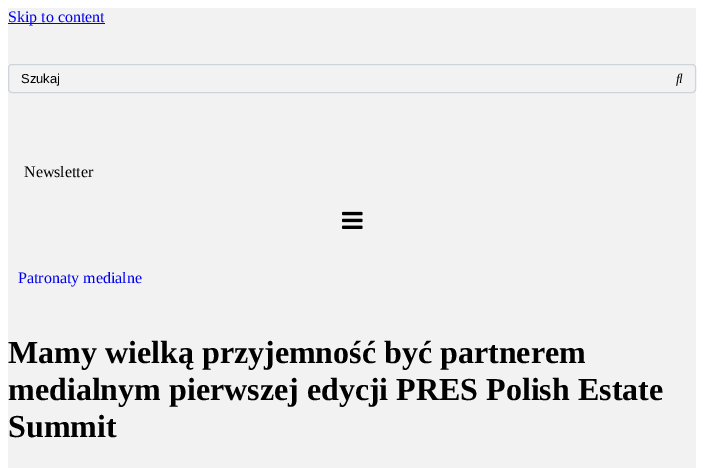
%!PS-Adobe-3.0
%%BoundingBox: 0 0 704 468
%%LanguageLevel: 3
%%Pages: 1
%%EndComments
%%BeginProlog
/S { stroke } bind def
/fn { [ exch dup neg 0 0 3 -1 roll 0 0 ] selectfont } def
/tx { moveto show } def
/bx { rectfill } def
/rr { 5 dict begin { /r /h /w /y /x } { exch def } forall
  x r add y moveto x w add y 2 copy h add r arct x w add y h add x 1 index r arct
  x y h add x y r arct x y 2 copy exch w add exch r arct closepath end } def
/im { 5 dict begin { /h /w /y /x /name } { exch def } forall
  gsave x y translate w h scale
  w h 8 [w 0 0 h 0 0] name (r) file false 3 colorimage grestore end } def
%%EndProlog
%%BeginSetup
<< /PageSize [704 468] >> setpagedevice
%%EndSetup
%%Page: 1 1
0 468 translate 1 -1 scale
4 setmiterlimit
1 setgray
0 0 704 468 bx
0.949 setgray
8 8 688 460 bx
0 0 0.933 setrgbcolor
8 23 97 1 bx
/LiberationSerif-Regular 16 fn
(Skip to content) 8 22 tx
0.808 0.831 0.855 setrgbcolor
8.5 64.5 687 28 3.5 rr S
/LiberationSans-Regular 13 fn
0 setgray
(Szukaj) 21 83 tx
(image0.raw) 676 73 7 13 im
/LiberationSerif-Regular 16 fn
(Newsletter) 24 177 tx
(image1.raw) 342 211 21 18 im
0 0 0.933 setrgbcolor
(Patronaty medialne) 18 283 tx
/LiberationSerif-Bold 32 fn
0 setgray
(Mamy wielką przyjemność być partnerem) 8 363 tx
(medialnym pierwszej edycji PRES Polish Estate) 8 400 tx
(Summit) 8 437 tx
showpage
%%EOF
